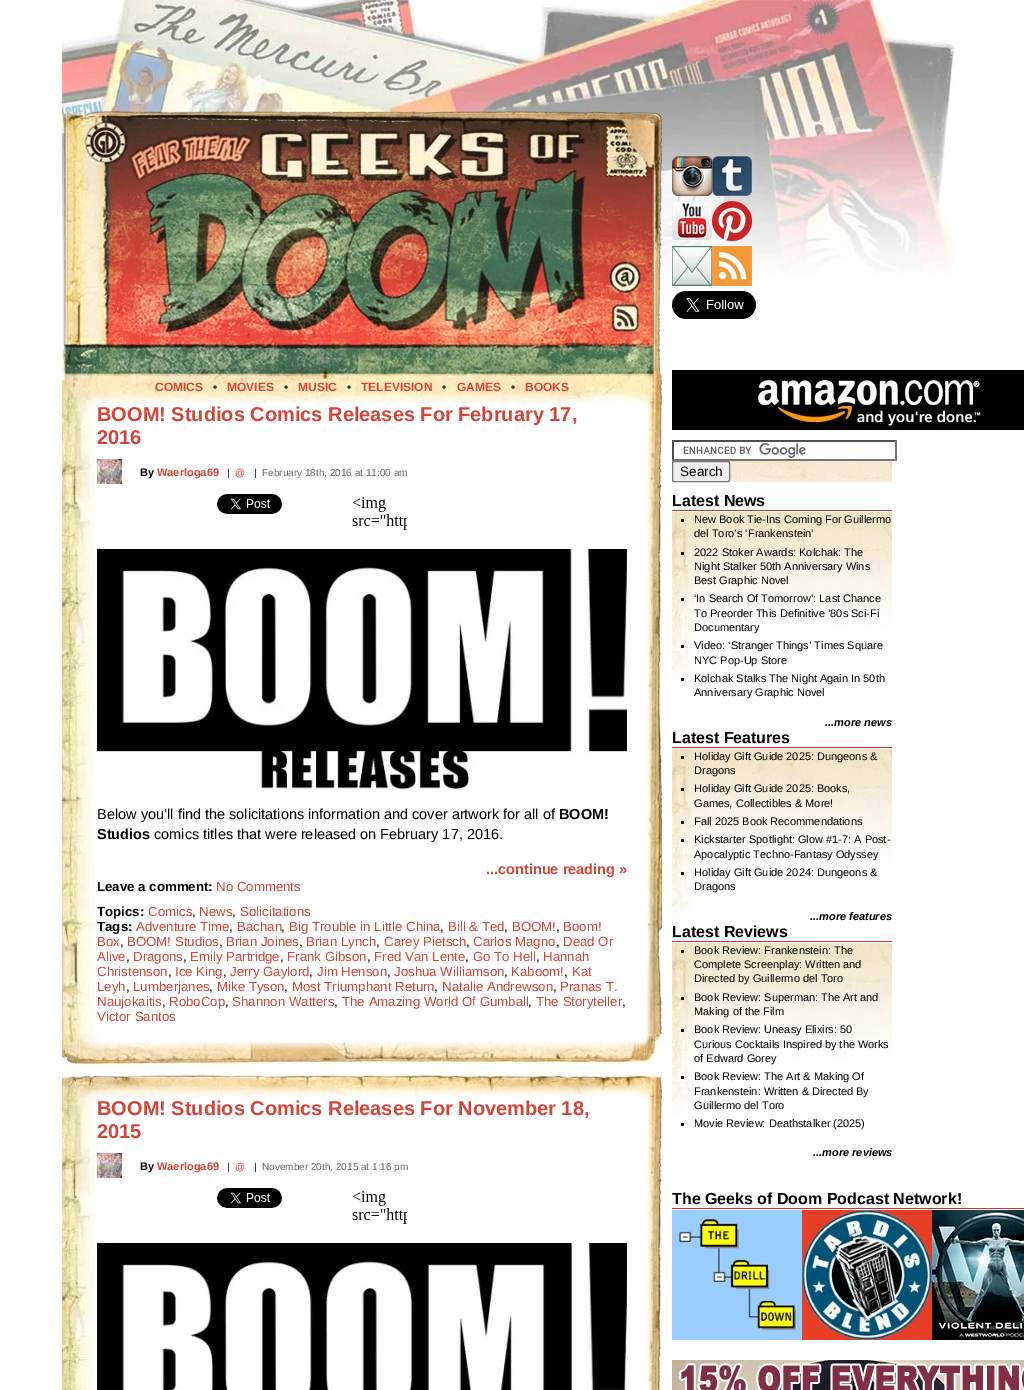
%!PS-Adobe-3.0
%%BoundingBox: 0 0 1024 1390
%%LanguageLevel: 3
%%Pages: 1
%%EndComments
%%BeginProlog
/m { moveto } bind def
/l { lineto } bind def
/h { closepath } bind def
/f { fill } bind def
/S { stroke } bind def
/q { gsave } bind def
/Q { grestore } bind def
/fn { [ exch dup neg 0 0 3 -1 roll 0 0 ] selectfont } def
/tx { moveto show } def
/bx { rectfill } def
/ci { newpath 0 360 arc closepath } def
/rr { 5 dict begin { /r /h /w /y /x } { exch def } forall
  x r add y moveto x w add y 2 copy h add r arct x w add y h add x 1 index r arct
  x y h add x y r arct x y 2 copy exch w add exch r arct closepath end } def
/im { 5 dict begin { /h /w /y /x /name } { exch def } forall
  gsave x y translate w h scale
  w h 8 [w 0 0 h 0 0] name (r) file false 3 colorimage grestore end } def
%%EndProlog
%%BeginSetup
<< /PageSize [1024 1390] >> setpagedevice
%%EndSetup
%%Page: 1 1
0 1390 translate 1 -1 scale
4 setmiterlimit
1 setgray
0 0 1024 1390 bx
(image0.raw) 62 0 893 274 im
(image1.raw) 62 110 600 7 im
(image2.raw) 62 117 5 263 im
(image3.raw) 67 117 590 263 im
(image4.raw) 657 117 5 263 im
(image5.raw) 62 380 600 23 im
/LiberationSans-Bold 12 fn
0.824 0.271 0.22 setrgbcolor
(COMICS) 155 391 tx
0.157 0.259 0.196 setrgbcolor
(•) 213 391 tx
0.824 0.271 0.22 setrgbcolor
(MOVIES) 227 391 tx
0.157 0.259 0.196 setrgbcolor
(•) 284 391 tx
0.824 0.271 0.22 setrgbcolor
(MUSIC) 298 391 tx
0.157 0.259 0.196 setrgbcolor
(•) 347 391 tx
0.824 0.271 0.22 setrgbcolor
(TELEVISION) 361 391 tx
0.157 0.259 0.196 setrgbcolor
(•) 442 391 tx
0.824 0.271 0.22 setrgbcolor
(GAMES) 457 391 tx
0.157 0.259 0.196 setrgbcolor
(•) 511 391 tx
0.824 0.271 0.22 setrgbcolor
(BOOKS) 525 391 tx
(image6.raw) 62 403 35 631 im
/LiberationSans-Bold 20 fn
(BOOM! Studios Comics Releases For February 17,) 97 421 tx
(2016) 97 444 tx
(image7.raw) 97 459 25 25 im
/LiberationSans-Bold 11 fn
0 setgray
(By) 140 476 tx
0.824 0.271 0.22 setrgbcolor
(Waerloga69) 157 476 tx
/LiberationSans-Regular 10 fn
0 setgray
(|) 227 476 tx
0.824 0.271 0.22 setrgbcolor
(@) 235 476 tx
0 setgray
(|) 254 476 tx
0.4 setgray
(February 18th, 2016 at 11:00 am) 262 476 tx
(image8.raw) 217 494 65 20 im
(image9.raw) 352 497 55 33 im
(image10.raw) 97 549 530 241 im
/LiberationSans-Regular 14.5 fn
0 setgray
(Below you’ll find the solicitations information and cover artwork for all of) 97 819 tx
/LiberationSans-Bold 14.5 fn
(BOOM!) 559 819 tx
(Studios) 97 839 tx
/LiberationSans-Regular 14.5 fn
(comics titles that were released on February 17, 2016.) 154 839 tx
/LiberationSans-Bold 14.5 fn
0.824 0.271 0.22 setrgbcolor
(...continue reading ») 486 874 tx
/LiberationSans-Bold 13.25 fn
0 setgray
(Leave a comment:) 97 891 tx
/LiberationSans-Regular 13.25 fn
0.824 0.271 0.22 setrgbcolor
(No Comments) 216 891 tx
/LiberationSans-Bold 13.25 fn
0 setgray
(Topics:) 97 916 tx
/LiberationSans-Regular 13.25 fn
0.824 0.271 0.22 setrgbcolor
(Comics) 148 916 tx
0 setgray
(,) 192 916 tx
0.824 0.271 0.22 setrgbcolor
(News) 199 916 tx
0 setgray
(,) 232 916 tx
0.824 0.271 0.22 setrgbcolor
(Solicitations) 240 916 tx
/LiberationSans-Bold 13.25 fn
0 setgray
(Tags:) 97 931 tx
/LiberationSans-Regular 13.25 fn
0.824 0.271 0.22 setrgbcolor
(Adventure Time) 136 931 tx
0 setgray
(,) 229 931 tx
0.824 0.271 0.22 setrgbcolor
(Bachan) 237 931 tx
0 setgray
(,) 281 931 tx
0.824 0.271 0.22 setrgbcolor
(Big Trouble in Little China) 289 931 tx
0 setgray
(,) 440 931 tx
0.824 0.271 0.22 setrgbcolor
(Bill & Ted) 448 931 tx
0 setgray
(,) 504 931 tx
0.824 0.271 0.22 setrgbcolor
(BOOM!) 512 931 tx
0 setgray
(,) 556 931 tx
0.824 0.271 0.22 setrgbcolor
(Boom!) 563 931 tx
(Box) 97 946 tx
0 setgray
(,) 120 946 tx
0.824 0.271 0.22 setrgbcolor
(BOOM! Studios) 127 946 tx
0 setgray
(,) 219 946 tx
0.824 0.271 0.22 setrgbcolor
(Brian Joines) 226 946 tx
0 setgray
(,) 299 946 tx
0.824 0.271 0.22 setrgbcolor
(Brian Lynch) 306 946 tx
0 setgray
(,) 376 946 tx
0.824 0.271 0.22 setrgbcolor
(Carey Pietsch) 384 946 tx
0 setgray
(,) 466 946 tx
0.824 0.271 0.22 setrgbcolor
(Carlos Magno) 473 946 tx
0 setgray
(,) 556 946 tx
0.824 0.271 0.22 setrgbcolor
(Dead Or) 563 946 tx
(Alive) 97 961 tx
0 setgray
(,) 126 961 tx
0.824 0.271 0.22 setrgbcolor
(Dragons) 133 961 tx
0 setgray
(,) 183 961 tx
0.824 0.271 0.22 setrgbcolor
(Emily Partridge) 190 961 tx
0 setgray
(,) 280 961 tx
0.824 0.271 0.22 setrgbcolor
(Frank Gibson) 287 961 tx
0 setgray
(,) 367 961 tx
0.824 0.271 0.22 setrgbcolor
(Fred Van Lente) 374 961 tx
0 setgray
(,) 465 961 tx
0.824 0.271 0.22 setrgbcolor
(Go To Hell) 473 961 tx
0 setgray
(,) 536 961 tx
0.824 0.271 0.22 setrgbcolor
(Hannah) 543 961 tx
(Christenson) 97 976 tx
0 setgray
(,) 168 976 tx
0.824 0.271 0.22 setrgbcolor
(Ice King) 175 976 tx
0 setgray
(,) 223 976 tx
0.824 0.271 0.22 setrgbcolor
(Jerry Gaylord) 230 976 tx
0 setgray
(,) 309 976 tx
0.824 0.271 0.22 setrgbcolor
(Jim Henson) 317 976 tx
0 setgray
(,) 387 976 tx
0.824 0.271 0.22 setrgbcolor
(Joshua Williamson) 394 976 tx
0 setgray
(,) 504 976 tx
0.824 0.271 0.22 setrgbcolor
(Kaboom!) 511 976 tx
0 setgray
(,) 564 976 tx
0.824 0.271 0.22 setrgbcolor
(Kat) 572 976 tx
(Leyh) 97 991 tx
0 setgray
(,) 126 991 tx
0.824 0.271 0.22 setrgbcolor
(Lumberjanes) 133 991 tx
0 setgray
(,) 209 991 tx
0.824 0.271 0.22 setrgbcolor
(Mike Tyson) 217 991 tx
0 setgray
(,) 284 991 tx
0.824 0.271 0.22 setrgbcolor
(Most Triumphant Return) 292 991 tx
0 setgray
(,) 434 991 tx
0.824 0.271 0.22 setrgbcolor
(Natalie Andrewson) 442 991 tx
0 setgray
(,) 553 991 tx
0.824 0.271 0.22 setrgbcolor
(Pranas T.) 560 991 tx
(Naujokaitis) 97 1006 tx
0 setgray
(,) 162 1006 tx
0.824 0.271 0.22 setrgbcolor
(RoboCop) 169 1006 tx
0 setgray
(,) 225 1006 tx
0.824 0.271 0.22 setrgbcolor
(Shannon Watters) 232 1006 tx
0 setgray
(,) 334 1006 tx
0.824 0.271 0.22 setrgbcolor
(The Amazing World Of Gumball) 342 1006 tx
0 setgray
(,) 528 1006 tx
0.824 0.271 0.22 setrgbcolor
(The Storyteller) 536 1006 tx
0 setgray
(,) 622 1006 tx
0.824 0.271 0.22 setrgbcolor
(Victor Santos) 97 1021 tx
(image11.raw) 643 403 19 631 im
(image12.raw) 62 1034 600 30 im
(image13.raw) 62 1074 600 23 im
(image14.raw) 62 1097 35 293 im
/LiberationSans-Bold 20 fn
(BOOM! Studios Comics Releases For November 18,) 97 1115 tx
(2015) 97 1138 tx
(image7.raw) 97 1153 25 25 im
/LiberationSans-Bold 11 fn
0 setgray
(By) 140 1170 tx
0.824 0.271 0.22 setrgbcolor
(Waerloga69) 157 1170 tx
/LiberationSans-Regular 10 fn
0 setgray
(|) 227 1170 tx
0.824 0.271 0.22 setrgbcolor
(@) 235 1170 tx
0 setgray
(|) 254 1170 tx
0.4 setgray
(November 20th, 2015 at 1:16 pm) 262 1170 tx
(image15.raw) 217 1188 65 20 im
(image9.raw) 352 1191 55 33 im
(image16.raw) 97 1243 530 147 im
(image17.raw) 643 1097 19 293 im
(image18.raw) 672 156 40 40 im
(image19.raw) 712 156 40 40 im
(image20.raw) 672 201 40 40 im
(image21.raw) 712 201 40 40 im
(image22.raw) 672 246 40 40 im
(image23.raw) 712 246 40 40 im
(image24.raw) 672 291 84 28 im
(image25.raw) 672 370 352 60 im
(image26.raw) 672 461 220 21 im
(image27.raw) 683 443 123 15 im
0.31 setgray
672 440 m 897 440 l 895 442 l 674 442 l h f
0.463 setgray
897 440 m 897 461 l 895 459 l 895 442 l h f
897 461 m 672 461 l 674 459 l 895 459 l h f
0.31 setgray
672 461 m 672 440 l 674 442 l 674 459 l h f
0.937 setgray
672.5 461.5 57 20 1.5 rr q f Q
0.463 setgray
S
/LiberationSans-Regular 13.5 fn
0 setgray
(Search) 680 476 tx
0.8 0.2 0.2 setrgbcolor
672 510 220 1 bx
/LiberationSans-Bold 16 fn
0 setgray
(Latest News) 672 506 tx
(image28.raw) 672 512 220 176 im
682.5 520.5 1.5 ci f
/LiberationSans-Regular 11 fn
(New Book Tie-Ins Coming For Guillermo) 694 523 tx
(del Toro’s ‘Frankenstein’) 694 537 tx
682.5 553.5 1.5 ci f
(2022 Stoker Awards: Kolchak: The) 694 556 tx
(Night Stalker 50th Anniversary Wins) 694 570 tx
(Best Graphic Novel) 694 584 tx
682.5 599.5 1.5 ci f
(‘In Search Of Tomorrow’: Last Chance) 694 602 tx
(To Preorder This Definitive ’80s Sci-Fi) 694 617 tx
(Documentary) 694 631 tx
682.5 646.5 1.5 ci f
(Video: ‘Stranger Things’ Times Square) 694 649 tx
(NYC Pop-Up Store) 694 664 tx
682.5 679.5 1.5 ci f
(Kolchak Stalks The Night Again In 50th) 694 682 tx
(Anniversary Graphic Novel) 694 696 tx
/LiberationSans-BoldItalic 11 fn
(...more news) 825 726 tx
0.8 0.2 0.2 setrgbcolor
672 747 220 1 bx
/LiberationSans-Bold 16 fn
0 setgray
(Latest Features) 672 743 tx
(image29.raw) 672 749 220 174 im
682.5 757.5 1.5 ci f
/LiberationSans-Regular 11 fn
(Holiday Gift Guide 2025: Dungeons &) 694 760 tx
(Dragons) 694 774 tx
682.5 789.5 1.5 ci f
(Holiday Gift Guide 2025: Books,) 694 792 tx
(Games, Collectibles & More!) 694 807 tx
682.5 822.5 1.5 ci f
(Fall 2025 Book Recommendations) 694 825 tx
682.5 840.5 1.5 ci f
(Kickstarter Spotlight: Glow #1-7: A Post-) 694 843 tx
(Apocalyptic Techno-Fantasy Odyssey) 694 858 tx
682.5 873.5 1.5 ci f
(Holiday Gift Guide 2024: Dungeons &) 694 876 tx
(Dragons) 694 890 tx
/LiberationSans-BoldItalic 11 fn
(...more features) 810 920 tx
0.8 0.2 0.2 setrgbcolor
672 941 220 1 bx
/LiberationSans-Bold 16 fn
0 setgray
(Latest Reviews) 672 937 tx
(image28.raw) 672 943 220 176 im
682.5 951.5 1.5 ci f
/LiberationSans-Regular 11 fn
(Book Review: Frankenstein: The) 694 954 tx
(Complete Screenplay: Written and) 694 968 tx
(Directed by Guillermo del Toro) 694 982 tx
682.5 998.5 1.5 ci f
(Book Review: Superman: The Art and) 694 1001 tx
(Making of the Film) 694 1015 tx
682.5 1030.5 1.5 ci f
(Book Review: Uneasy Elixirs: 50) 694 1033 tx
(Curious Cocktails Inspired by the Works) 694 1048 tx
(of Edward Gorey) 694 1062 tx
682.5 1077.5 1.5 ci f
(Book Review: The Art & Making Of) 694 1080 tx
(Frankenstein: Written & Directed By) 694 1095 tx
(Guillermo del Toro) 694 1109 tx
682.5 1124.5 1.5 ci f
(Movie Review: Deathstalker \(2025\)) 694 1127 tx
/LiberationSans-BoldItalic 11 fn
(...more reviews) 813 1156 tx
0.8 0.2 0.2 setrgbcolor
672 1208 352 1 bx
/LiberationSans-Bold 16 fn
0 setgray
(The Geeks of Doom Podcast Network!) 672 1204 tx
(image30.raw) 672 1210 130 130 im
(image31.raw) 802 1210 130 130 im
(image32.raw) 932 1210 92 130 im
(image33.raw) 672 1360 352 30 im
showpage
%%EOF
